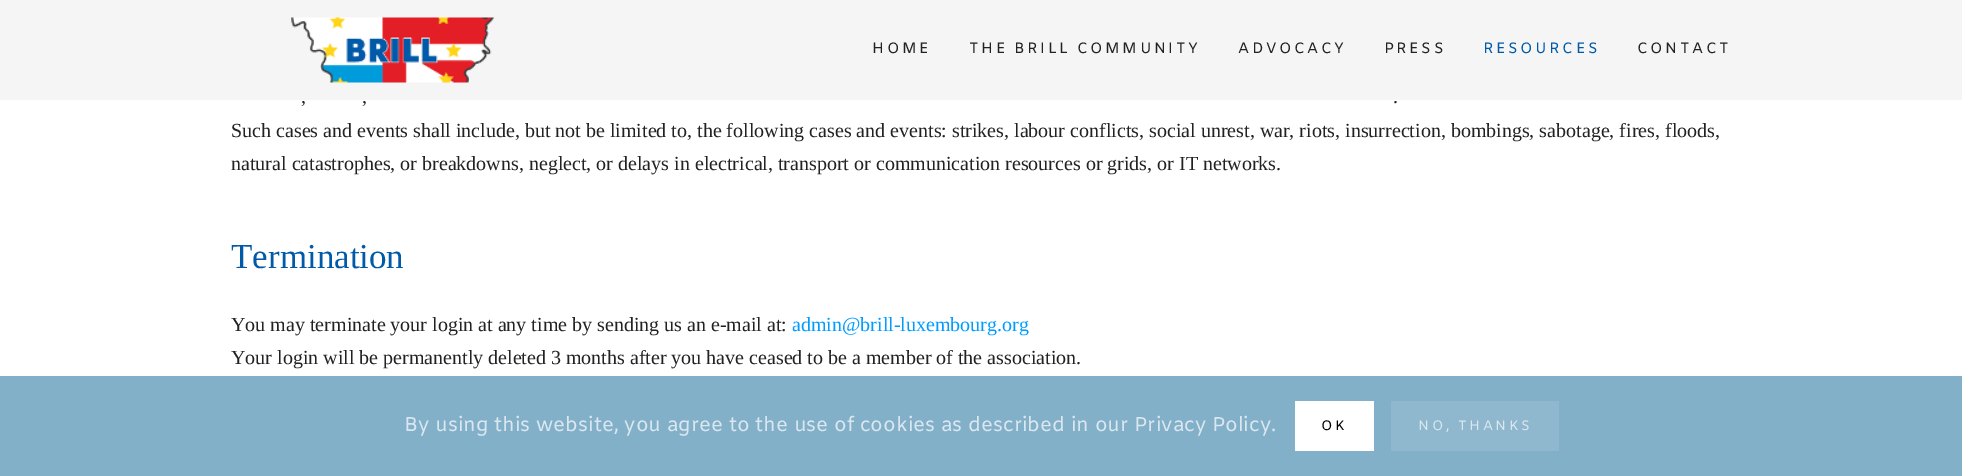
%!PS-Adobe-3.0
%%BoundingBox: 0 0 1962 476
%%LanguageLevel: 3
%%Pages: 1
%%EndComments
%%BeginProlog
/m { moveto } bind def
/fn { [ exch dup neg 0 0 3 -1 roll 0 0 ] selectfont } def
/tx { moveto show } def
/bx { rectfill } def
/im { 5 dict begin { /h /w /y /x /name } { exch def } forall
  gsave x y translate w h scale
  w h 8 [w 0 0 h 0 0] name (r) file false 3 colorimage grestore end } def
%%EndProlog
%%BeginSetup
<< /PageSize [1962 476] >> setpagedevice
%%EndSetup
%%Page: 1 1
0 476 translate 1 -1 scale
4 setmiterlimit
1 setgray
0 0 1962 476 bx
0.961 setgray
0 0 1962 100 bx
(image0.raw) 291 17 203 66 im
/Amiko-Regular 15 fn
0.133 setgray
872 53 m 2.5 0 (HOME) ashow
969 53 m 2.5 0 (THE BRILL COMMUNITY) ashow
1238 53 m 2.5 0 (ADVOCACY) ashow
1384 53 m 2.5 0 (PRESS) ashow
0 0.353 0.659 setrgbcolor
1483 53 m 2.5 0 (RESOURCES) ashow
0.133 setgray
1637 53 m 2.5 0 (CONTACT) ashow
/LiberationSerif-Regular 20 fn
(,) 301 103 tx
(,) 362 103 tx
(.) 1393 103 tx
(Such cases and events shall include, but not be limited to, the following cases and events: strikes, labour conflicts, social unrest, war, riots, insurrection, bombings, sabotage, fires, floods,) 231 137 tx
(natural catastrophes, or breakdowns, neglect, or delays in electrical, transport or communication resources or grids, or IT networks.) 231 170 tx
/LiberationSerif-Regular 35 fn
0 0.353 0.659 setrgbcolor
(Termination) 231 268 tx
/LiberationSerif-Regular 20 fn
0.133 setgray
(You may terminate your login at any time by sending us an e-mail at:) 231 331 tx
0 0.616 1 setrgbcolor
(admin@brill-luxembourg.org) 792 331 tx
0.133 setgray
(Your login will be permanently deleted 3 months after you have ceased to be a member of the association.) 231 364 tx
0.51 0.69 0.788 setrgbcolor
0 376 1962 100 bx
/Amiko-Regular 20 fn
0.855 0.906 0.937 setrgbcolor
(By using this website, you agree to the use of cookies as described in our Privacy Policy.) 404 431 tx
1 setgray
1295 401 79 50 bx
/Amiko-Regular 13.75 fn
0 setgray
1321 430 m 2.5 0 (OK) ashow
0.561 0.722 0.808 setrgbcolor
1391 401 168 50 bx
0.855 0.906 0.937 setrgbcolor
1418 430 m 2.5 0 (NO, THANKS) ashow
showpage
%%EOF
